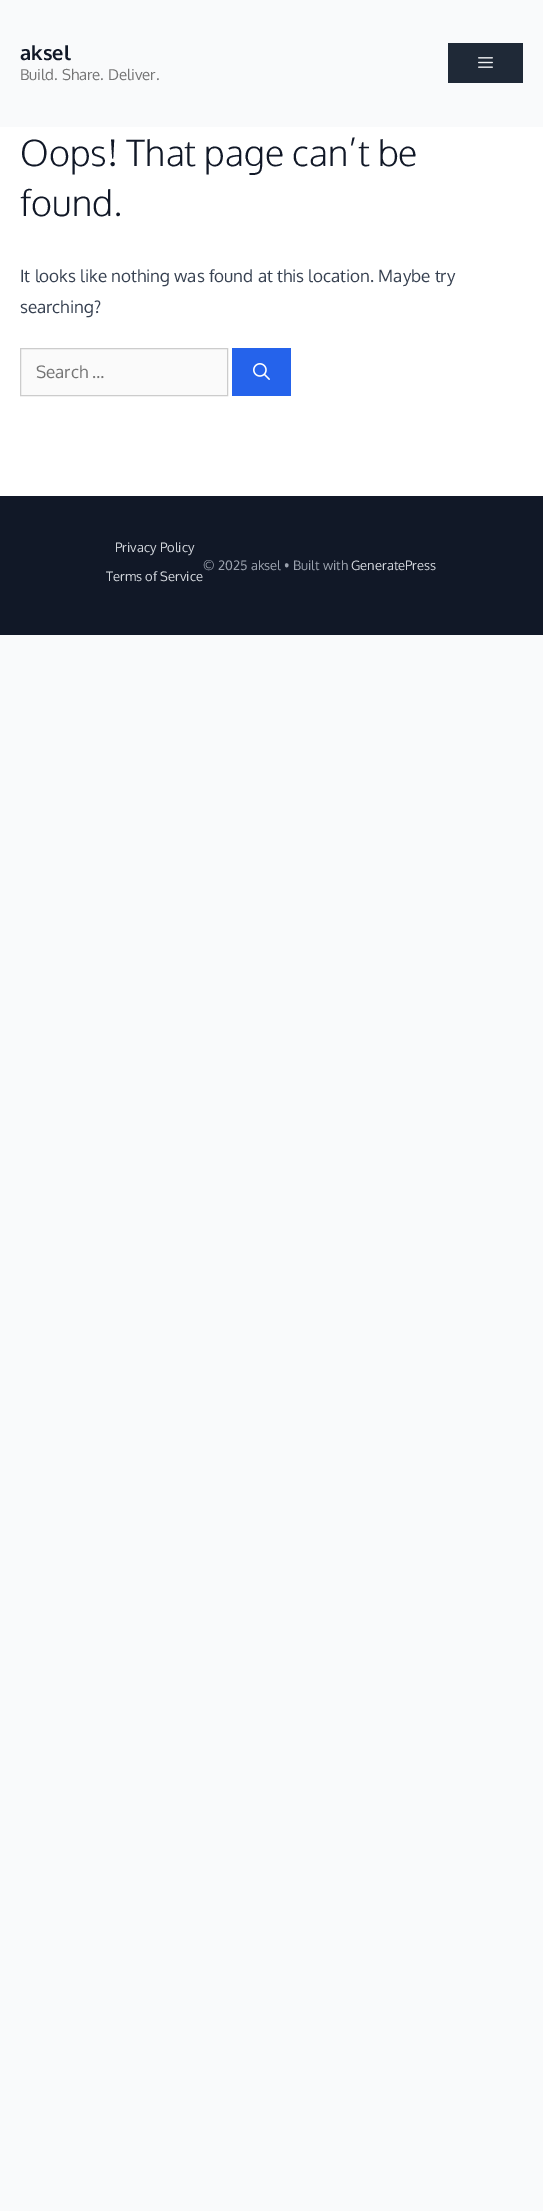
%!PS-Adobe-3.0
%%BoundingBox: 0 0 543 2211
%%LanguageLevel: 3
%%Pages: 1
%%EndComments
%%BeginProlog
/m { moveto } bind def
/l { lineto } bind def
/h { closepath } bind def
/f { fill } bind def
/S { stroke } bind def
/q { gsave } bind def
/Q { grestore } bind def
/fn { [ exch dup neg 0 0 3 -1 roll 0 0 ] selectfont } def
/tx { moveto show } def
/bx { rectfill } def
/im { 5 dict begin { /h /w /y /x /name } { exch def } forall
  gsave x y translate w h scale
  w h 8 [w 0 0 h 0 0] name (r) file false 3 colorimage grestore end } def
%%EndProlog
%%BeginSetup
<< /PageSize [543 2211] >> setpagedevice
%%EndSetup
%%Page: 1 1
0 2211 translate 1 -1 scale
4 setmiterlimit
0.976 0.98 0.984 setrgbcolor
0 0 543 2211 bx
/Oxygen-Bold 20 fn
0.067 0.094 0.153 setrgbcolor
(aksel) 20 60 tx
/Oxygen-Regular 15 fn
0.459 setgray
(Build. Share. Deliver.) 20 80 tx
0.122 0.161 0.216 setrgbcolor
448 43 75 40 bx
(image0.raw) 478 57 15 11 im
1 setgray
0 127 543 369 bx
/Oxygen-Light 36 fn
0.067 0.094 0.153 setrgbcolor
(Oops! That page can’t be) 20 166 tx
(found.) 20 216 tx
/Oxygen-Regular 17 fn
0.216 0.255 0.318 setrgbcolor
(It looks like nothing was found at this location. Maybe try) 20 282 tx
(searching?) 20 313 tx
0.98 setgray
20.5 348.5 m 227.5 348.5 l 227.5 395.5 l 20.5 395.5 l h q f Q
0.8 setgray
S
0.459 setgray
(Search …) 36 378 tx
0.145 0.388 0.922 setrgbcolor
232 348 59 48 bx
(image1.raw) 253 363 17 17 im
0.067 0.094 0.153 setrgbcolor
0 496 543 139 bx
/Oxygen-Regular 13 fn
0.82 0.835 0.859 setrgbcolor
(Privacy Policy) 115 552 tx
(Terms of Service) 106 581 tx
0.612 0.639 0.686 setrgbcolor
(© 2025 aksel • Built with) 203 570 tx
0.82 0.835 0.859 setrgbcolor
(GeneratePress) 351 570 tx
showpage
%%EOF
